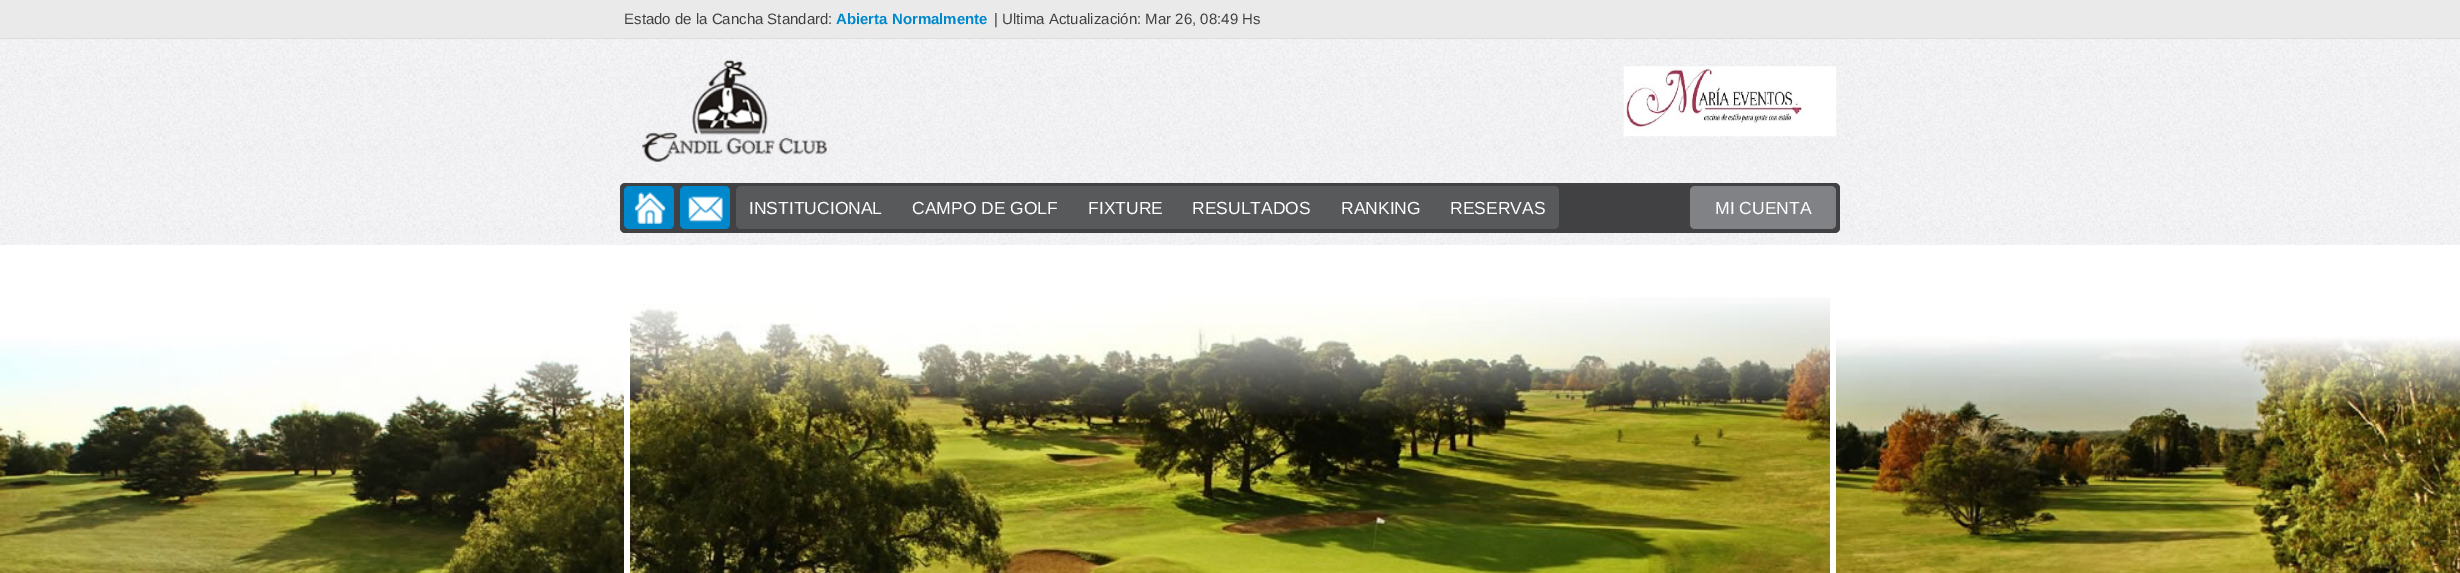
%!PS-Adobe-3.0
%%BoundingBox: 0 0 2460 573
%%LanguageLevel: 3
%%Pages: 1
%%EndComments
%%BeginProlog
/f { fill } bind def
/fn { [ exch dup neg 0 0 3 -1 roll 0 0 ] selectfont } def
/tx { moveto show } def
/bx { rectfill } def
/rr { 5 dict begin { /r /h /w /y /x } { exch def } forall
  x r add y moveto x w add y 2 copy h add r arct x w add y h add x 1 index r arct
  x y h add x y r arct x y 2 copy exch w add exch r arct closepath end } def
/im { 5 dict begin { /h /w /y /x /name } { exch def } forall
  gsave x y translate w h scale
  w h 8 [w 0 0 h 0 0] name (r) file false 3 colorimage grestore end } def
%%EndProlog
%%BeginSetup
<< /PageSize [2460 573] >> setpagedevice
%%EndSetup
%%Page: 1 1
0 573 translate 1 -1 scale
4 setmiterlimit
1 setgray
0 0 2460 573 bx
0.918 setgray
0 0 2460 38 bx
0.867 setgray
0 38 2460 1 bx
/LiberationSans-Regular 15 fn
0.255 0.251 0.259 setrgbcolor
(Estado de la Cancha Standard:) 624 24 tx
/LiberationSans-Bold 15 fn
0 0.533 0.8 setrgbcolor
(Abierta Normalmente) 836 24 tx
/LiberationSans-Regular 15 fn
0.255 0.251 0.259 setrgbcolor
(| Ultima Actualización: Mar 26, 08:49 Hs) 994 24 tx
0.969 0.969 0.98 setrgbcolor
0 39 2460 206 bx
(image0.raw) 0 39 2460 144 im
(image1.raw) 642 60 185 102 im
(image2.raw) 1623 66 214 71 im
(image3.raw) 0 182 2460 63 im
0.255 0.251 0.259 setrgbcolor
620 183 1220 50 5 rr f
0 0.533 0.8 setrgbcolor
624 186 50 43 5 rr f
(image4.raw) 634 192 32 32 im
680 186 50 43 5 rr f
(image5.raw) 688 196 35 26 im
0.345 0.349 0.357 setrgbcolor
736 186 823 43 5 rr f
/LiberationSans-Regular 17.5 fn
1 setgray
(INSTITUCIONAL) 749 214 tx
(CAMPO DE GOLF) 912 214 tx
(FIXTURE) 1088 214 tx
(RESULTADOS) 1192 214 tx
(RANKING) 1341 214 tx
(RESERVAS) 1450 214 tx
0.502 0.51 0.522 setrgbcolor
1690 186 146 43 5 rr f
1 setgray
(MI CUENTA) 1715 214 tx
(image6.raw) 0 245 2460 328 im
624 336 1212 237 bx
(image7.raw) 630 297 1200 276 im
showpage
%%EOF
